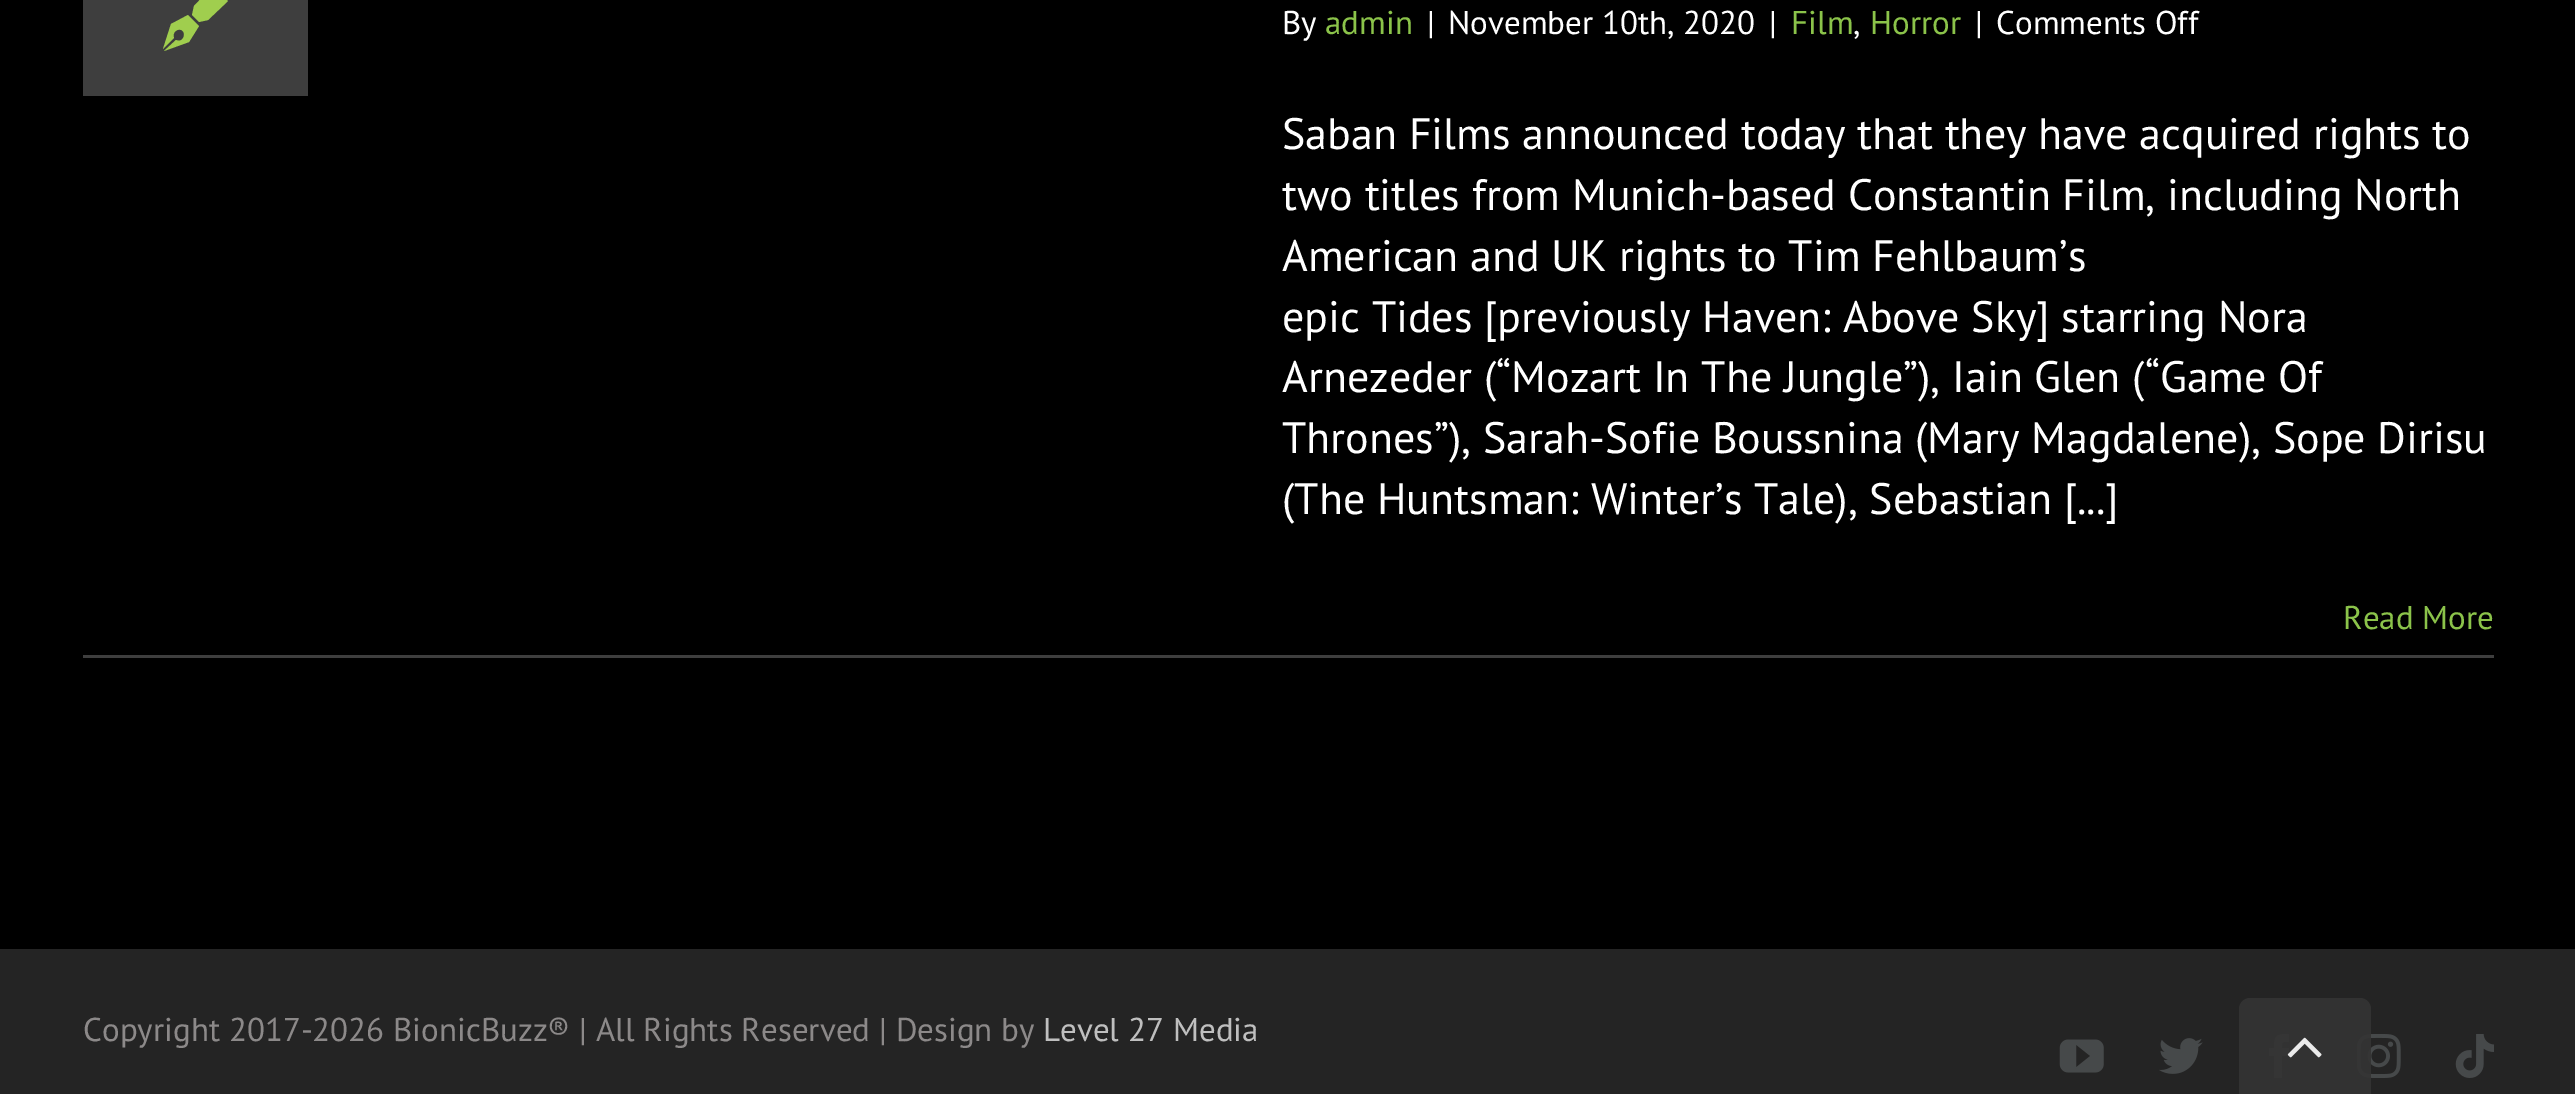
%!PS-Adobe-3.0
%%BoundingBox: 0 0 2575 1094
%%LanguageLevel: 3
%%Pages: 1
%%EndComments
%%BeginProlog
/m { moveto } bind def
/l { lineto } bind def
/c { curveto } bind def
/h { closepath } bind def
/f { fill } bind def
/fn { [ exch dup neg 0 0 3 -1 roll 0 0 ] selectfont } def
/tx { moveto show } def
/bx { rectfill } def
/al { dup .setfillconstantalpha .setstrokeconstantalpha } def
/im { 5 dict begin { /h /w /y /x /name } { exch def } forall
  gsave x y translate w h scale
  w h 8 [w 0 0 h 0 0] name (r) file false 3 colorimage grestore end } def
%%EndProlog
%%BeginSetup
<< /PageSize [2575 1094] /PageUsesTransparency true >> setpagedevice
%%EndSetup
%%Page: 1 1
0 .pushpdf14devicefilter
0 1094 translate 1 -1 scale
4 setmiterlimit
0 setgray
0 0 2575 1094 bx
0.243 setgray
83 0 225 96 bx
0.627 0.808 0.306 setrgbcolor
171 24 m 163 49 l 174 38 l 171 30 183 26 184 34 c 184 36 184 37 183 38 c 182 41 178 41 176 40 c 164 51 l 189 42 l 199 26 l 188 15 l h 213 -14 m 194 6 l 192 15 l 199 22 l 208 20 l 228 1 l h f
/PTSans-Regular 33 fn
1 setgray
(By) 1282 34 tx
0.545 0.765 0.29 setrgbcolor
(admin) 1325 34 tx
1 setgray
(|) 1427 34 tx
(November 10th, 2020) 1448 34 tx
(|) 1769 34 tx
0.545 0.765 0.29 setrgbcolor
(Film) 1791 34 tx
1 setgray
(,) 1853 34 tx
0.545 0.765 0.29 setrgbcolor
(Horror) 1870 34 tx
1 setgray
(|) 1975 34 tx
(Comments Off) 1996 34 tx
/PTSans-Regular 44 fn
(Saban Films announced today that they have acquired rights to) 1282 149 tx
(two titles from Munich-based Constantin Film, including North) 1282 210 tx
(American and UK rights to Tim Fehlbaum’s) 1282 271 tx
(epic Tides [previously Haven: Above Sky] starring Nora) 1282 332 tx
(Arnezeder \(“Mozart In The Jungle”\), Iain Glen \(“Game Of) 1282 392 tx
(Thrones”\), Sarah-Sofie Boussnina \(Mary Magdalene\), Sope Dirisu) 1282 453 tx
(\(The Huntsman: Winter’s Tale\), Sebastian [...]) 1282 514 tx
0.243 setgray
83 655 2411 3 bx
/PTSans-Regular 33 fn
0.545 0.765 0.29 setrgbcolor
(Read More) 2343 629 tx
0.141 setgray
0 949 2575 145 bx
0.549 0.537 0.537 setrgbcolor
(Copyright 2017-2026 BionicBuzz® | All Rights Reserved | Design by) 83 1041 tx
0.749 setgray
(Level 27 Media) 1043 1041 tx
(image0.raw) 2059 1039 45 34 im
(image1.raw) 2159 1038 44 36 im
0.275 0.286 0.29 setrgbcolor
2282 1078 m 2274 1078 l 2274 1056 l 2269 1056 l 2269 1048 l 2274 1048 l 2274 1035 2276 1034 2289 1034 c 2289 1042 l 2282 1042 2282 1041 2282 1048 c 2289 1048 l 2289 1056 l 2282 1056 l h f
(image2.raw) 2356 1034 45 44 im
(image3.raw) 2455 1034 39 44 im
0.9 al
0.2 setgray
2250 998 m 2360 998 l 2366 998 2371 1003 2371 1009 c 2371 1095 l 2239 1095 l 2239 1009 l 2239 1003 2244 998 2250 998 c h f
1 al
(image4.raw) 2287 1037 35 21 im
.poppdf14devicefilter showpage
%%EOF
